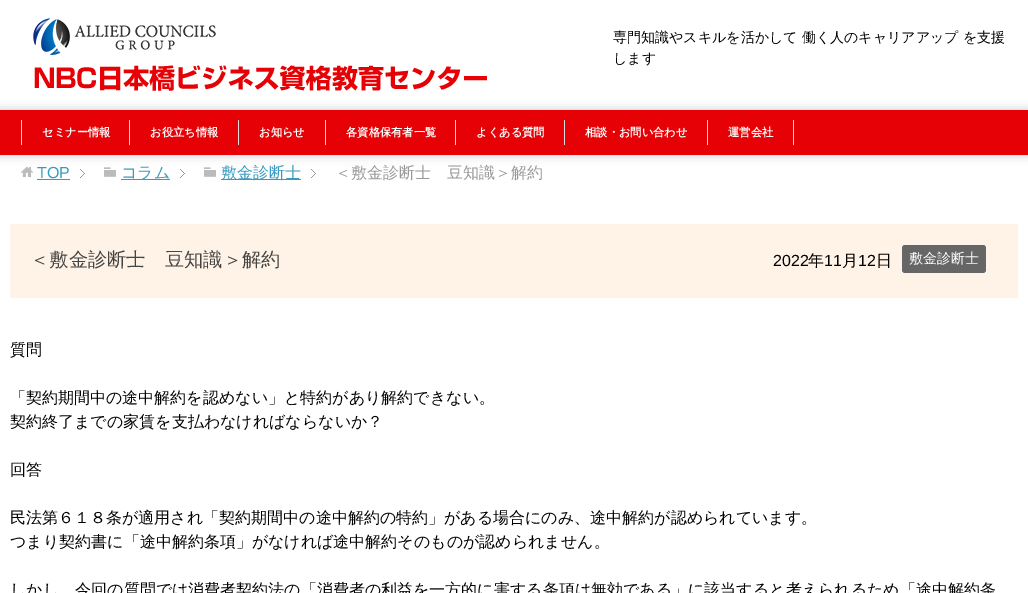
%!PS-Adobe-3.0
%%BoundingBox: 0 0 1028 593
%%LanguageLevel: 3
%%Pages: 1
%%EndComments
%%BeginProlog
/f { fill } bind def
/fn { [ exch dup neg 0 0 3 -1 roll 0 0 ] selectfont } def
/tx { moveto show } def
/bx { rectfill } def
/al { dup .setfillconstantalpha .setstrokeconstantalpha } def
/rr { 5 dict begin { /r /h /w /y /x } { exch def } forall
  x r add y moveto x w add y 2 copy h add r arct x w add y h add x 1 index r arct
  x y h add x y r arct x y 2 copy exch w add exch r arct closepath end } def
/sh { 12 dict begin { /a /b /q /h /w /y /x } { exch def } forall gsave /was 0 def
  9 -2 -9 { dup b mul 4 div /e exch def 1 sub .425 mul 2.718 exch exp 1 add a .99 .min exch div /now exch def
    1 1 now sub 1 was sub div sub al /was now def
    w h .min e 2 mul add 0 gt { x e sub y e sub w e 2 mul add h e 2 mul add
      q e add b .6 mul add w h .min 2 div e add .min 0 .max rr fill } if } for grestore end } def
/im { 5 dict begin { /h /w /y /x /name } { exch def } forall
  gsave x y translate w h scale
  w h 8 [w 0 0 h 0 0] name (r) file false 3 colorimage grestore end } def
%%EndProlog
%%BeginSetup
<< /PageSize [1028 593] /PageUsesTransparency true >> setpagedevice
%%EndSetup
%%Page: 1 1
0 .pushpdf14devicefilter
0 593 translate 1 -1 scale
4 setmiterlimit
1 setgray
0 0 1028 593 bx
(image0.raw) 33 18 454 73 im
/WenQuanYiZenHei-Medium 14 fn
0 setgray
(専門知識やスキルを活かして 働く人のキャリアアップ を支援) 613 42 tx
(します) 613 63 tx
0 110 1028 45 0 5 0.2 sh
0.898 0.004 0.02 setrgbcolor
0 110 1028 45 bx
0.867 setgray
21 120 1 25 bx
/WenQuanYiZenHei-Bold 11.25 fn
1 setgray
(セミナー情報) 42 136 tx
0.867 setgray
129 120 1 25 bx
1 setgray
(お役立ち情報) 150 136 tx
0.867 setgray
238 120 1 25 bx
1 setgray
(お知らせ) 259 136 tx
0.867 setgray
325 120 1 25 bx
1 setgray
(各資格保有者一覧) 346 136 tx
0.867 setgray
455 120 1 25 bx
1 setgray
(よくある質問) 476 136 tx
0.867 setgray
564 120 1 25 bx
1 setgray
(相談・お問い合わせ) 585 136 tx
0.867 setgray
793 120 1 25 bx
707 120 1 25 bx
1 setgray
(運営会社) 728 136 tx
(image1.raw) 80 169 5 9 im
(image2.raw) 21 167 12 11 im
/LiberationSans-Regular 16 fn
0.22 0.604 0.745 setrgbcolor
(TOP) 37 178 tx
37 179 33 1 bx
(image1.raw) 180 169 5 9 im
(image3.raw) 104 167 12 10 im
121 179 49 1 bx
/WenQuanYiZenHei-Medium 16 fn
(コラム) 121 178 tx
(image1.raw) 311 169 5 9 im
(image3.raw) 204 167 12 10 im
221 179 80 1 bx
(敷金診断士) 221 178 tx
0.6 setgray
(＜敷金診断士　豆知識＞解約) 335 178 tx
0.996 0.953 0.902 setrgbcolor
10 224 1008 74 bx
/WenQuanYiZenHei-Medium 19.25 fn
0.267 setgray
(＜敷金診断士　豆知識＞解約) 30 266 tx
/LiberationSans-Regular 16 fn
0 setgray
(2022) 773 266 tx
/WenQuanYiZenHei-Medium 16 fn
(年) 808 266 tx
/LiberationSans-Regular 16 fn
(11) 824 266 tx
/WenQuanYiZenHei-Medium 16 fn
(月) 842 266 tx
/LiberationSans-Regular 16 fn
(12) 858 266 tx
/WenQuanYiZenHei-Medium 16 fn
(日) 876 266 tx
0.4 setgray
902 245 84 28 3 rr f
/WenQuanYiZenHei-Medium 14 fn
1 setgray
(敷金診断士) 909 263 tx
/WenQuanYiZenHei-Medium 16 fn
0 setgray
(質問) 10 355 tx
(「契約期間中の途中解約を認めない」と特約があり解約できない。) 10 403 tx
(契約終了までの家賃を支払わなければならないか？) 10 427 tx
(回答) 10 475 tx
(民法第６１８条が適用され「契約期間中の途中解約の特約」がある場合にのみ、途中解約が認められています。) 10 523 tx
(つまり契約書に「途中解約条項」がなければ途中解約そのものが認められません。) 10 547 tx
(しかし、今回の質問では消費者契約法の「消費者の利益を一方的に害する条項は無効である」に該当すると考えられるため「途中解約条) 10 595 tx
.poppdf14devicefilter showpage
%%EOF
